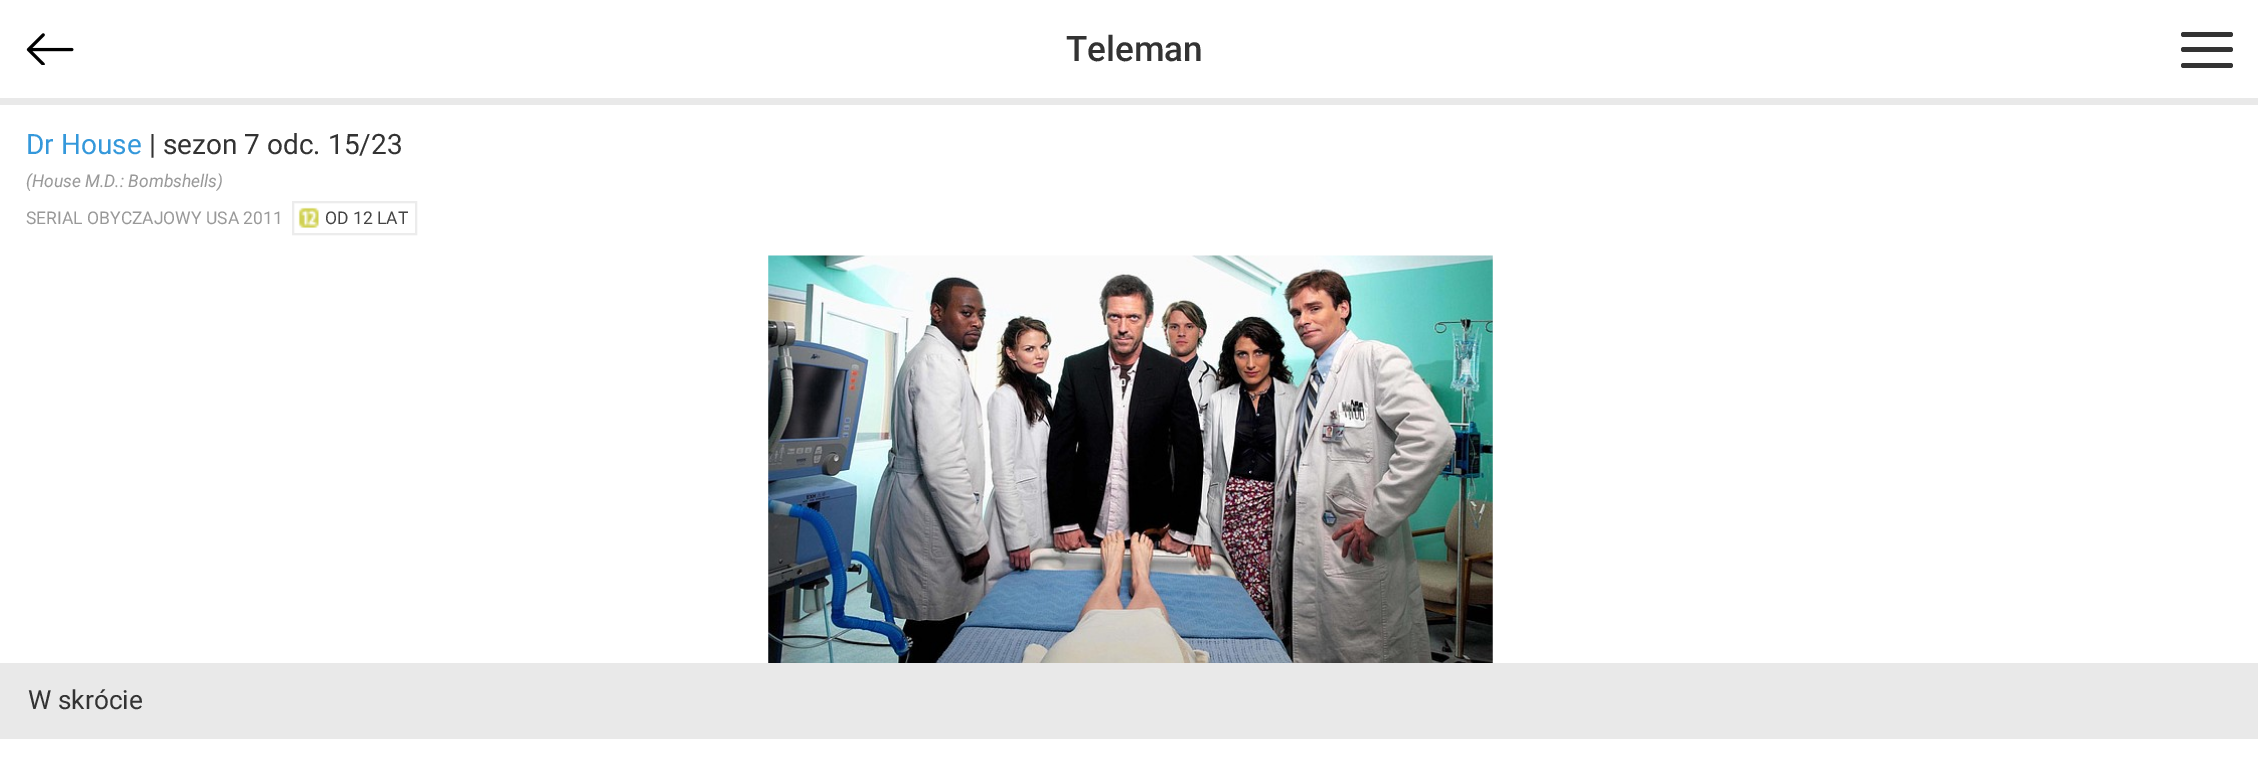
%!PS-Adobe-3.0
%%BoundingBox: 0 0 2258 767
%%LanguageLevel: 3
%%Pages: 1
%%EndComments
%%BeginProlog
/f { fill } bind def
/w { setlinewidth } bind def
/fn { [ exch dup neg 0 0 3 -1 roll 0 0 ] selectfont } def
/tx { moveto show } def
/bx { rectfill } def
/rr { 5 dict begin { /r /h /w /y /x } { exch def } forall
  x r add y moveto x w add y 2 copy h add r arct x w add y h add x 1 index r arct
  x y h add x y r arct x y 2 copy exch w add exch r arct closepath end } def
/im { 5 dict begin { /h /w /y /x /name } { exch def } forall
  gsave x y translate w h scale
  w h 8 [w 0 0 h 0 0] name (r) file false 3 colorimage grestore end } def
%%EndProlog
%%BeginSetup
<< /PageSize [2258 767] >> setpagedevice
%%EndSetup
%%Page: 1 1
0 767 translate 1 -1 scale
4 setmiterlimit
1 setgray
0 0 2258 767 bx
(image0.raw) 26 33 48 32 im
/Roboto-Medium 35 fn
0.2 setgray
(Teleman) 1066 61 tx
2181 32 52 5 2.5 rr f
2181 47 52 5 2.5 rr f
2181 63 52 5 2.5 rr f
0.914 setgray
0 98 2258 7 bx
/Roboto-Regular 28 fn
0.204 0.596 0.859 setrgbcolor
(Dr House) 26 154 tx
0.2 setgray
(| sezon 7 odc. 15/23) 149 154 tx
/Roboto-Italic 17.5 fn
0.6 setgray
(\(House M.D.: Bombshells\)) 26 187 tx
/Roboto-Regular 17.5 fn
(SERIAL OBYCZAJOWY USA 2011) 26 224 tx
(image1.raw) 298 207 21 21 im
0.925 setgray
2 w
293 202 123 32 rectstroke
0.267 setgray
(OD 12 LAT) 325 224 tx
(image2.raw) 768 255 725 408 im
0.914 setgray
0 663 2258 76 bx
/Roboto-Regular 26.25 fn
0.2 setgray
(W skrócie) 28 709 tx
showpage
%%EOF
